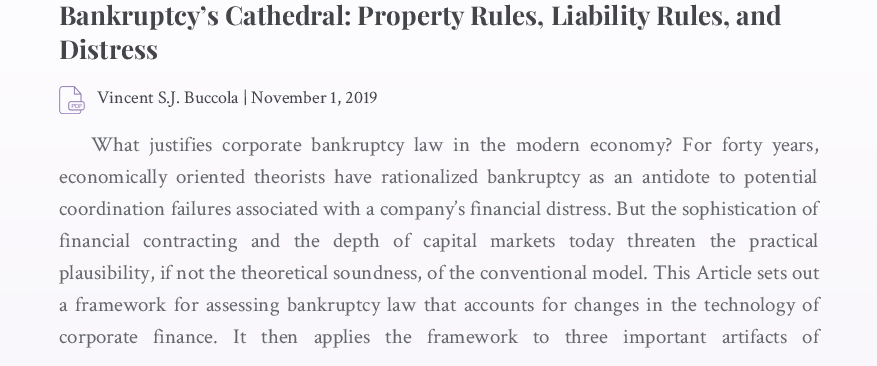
%!PS-Adobe-3.0
%%BoundingBox: 0 0 877 366
%%LanguageLevel: 3
%%Pages: 1
%%EndComments
%%BeginProlog
/m { moveto } bind def
/l { lineto } bind def
/h { closepath } bind def
/q { gsave } bind def
/Q { grestore } bind def
/fn { [ exch dup neg 0 0 3 -1 roll 0 0 ] selectfont } def
/tx { moveto show } def
/bx { rectfill } def
/im { 5 dict begin { /h /w /y /x /name } { exch def } forall
  gsave x y translate w h scale
  w h 8 [w 0 0 h 0 0] name (r) file false 3 colorimage grestore end } def
%%EndProlog
%%BeginSetup
<< /PageSize [877 366] >> setpagedevice
%%EndSetup
%%Page: 1 1
0 366 translate 1 -1 scale
4 setmiterlimit
1 setgray
0 0 877 366 bx
q 0 0 m 877 0 l 877 366 l 0 366 l h clip newpath
<< /ShadingType 2 /ColorSpace /DeviceRGB /Coords [438 -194 439 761] /Extend [true true] /Function << /FunctionType 2 /Domain [0 1] /C0 [1 1 1] /C1 [0.957 0.945 0.973] /N 1 >> >> shfill Q
/PlayfairDisplay-Bold 26 fn
0.263 0.271 0.286 setrgbcolor
(Bankruptcy’s Cathedral: Property Rules, Liability Rules, and) 59 25 tx
(Distress) 59 59 tx
(image0.raw) 59 86 26 28 im
/CrimsonText-Regular 18 fn
(Vincent S.J. Buccola | November 1, 2019) 97 103 tx
/CrimsonText-Regular 21 fn
0.392 0.404 0.42 setrgbcolor
91 151 m 5.1 0 32 (What justifies corporate bankruptcy law in the modern economy? For forty years,) widthshow
59 183 m 4 0 32 (economically oriented theorists have rationalized bankruptcy as an antidote to potential) widthshow
59 215 m 0.25 0 32 (coordination failures associated with a company’s financial distress. But the sophistication of) widthshow
59 247 m 8.6 0 32 (financial contracting and the depth of capital markets today threaten the practical) widthshow
59 279 m 0.25 0 32 (plausibility, if not the theoretical soundness, of the conventional model. This Article sets out) widthshow
59 311 m 2.75 0 32 (a framework for assessing bankruptcy law that accounts for changes in the technology of) widthshow
59 343 m 10.4 0 32 (corporate finance. It then applies the framework to three important artifacts of) widthshow
showpage
%%EOF
